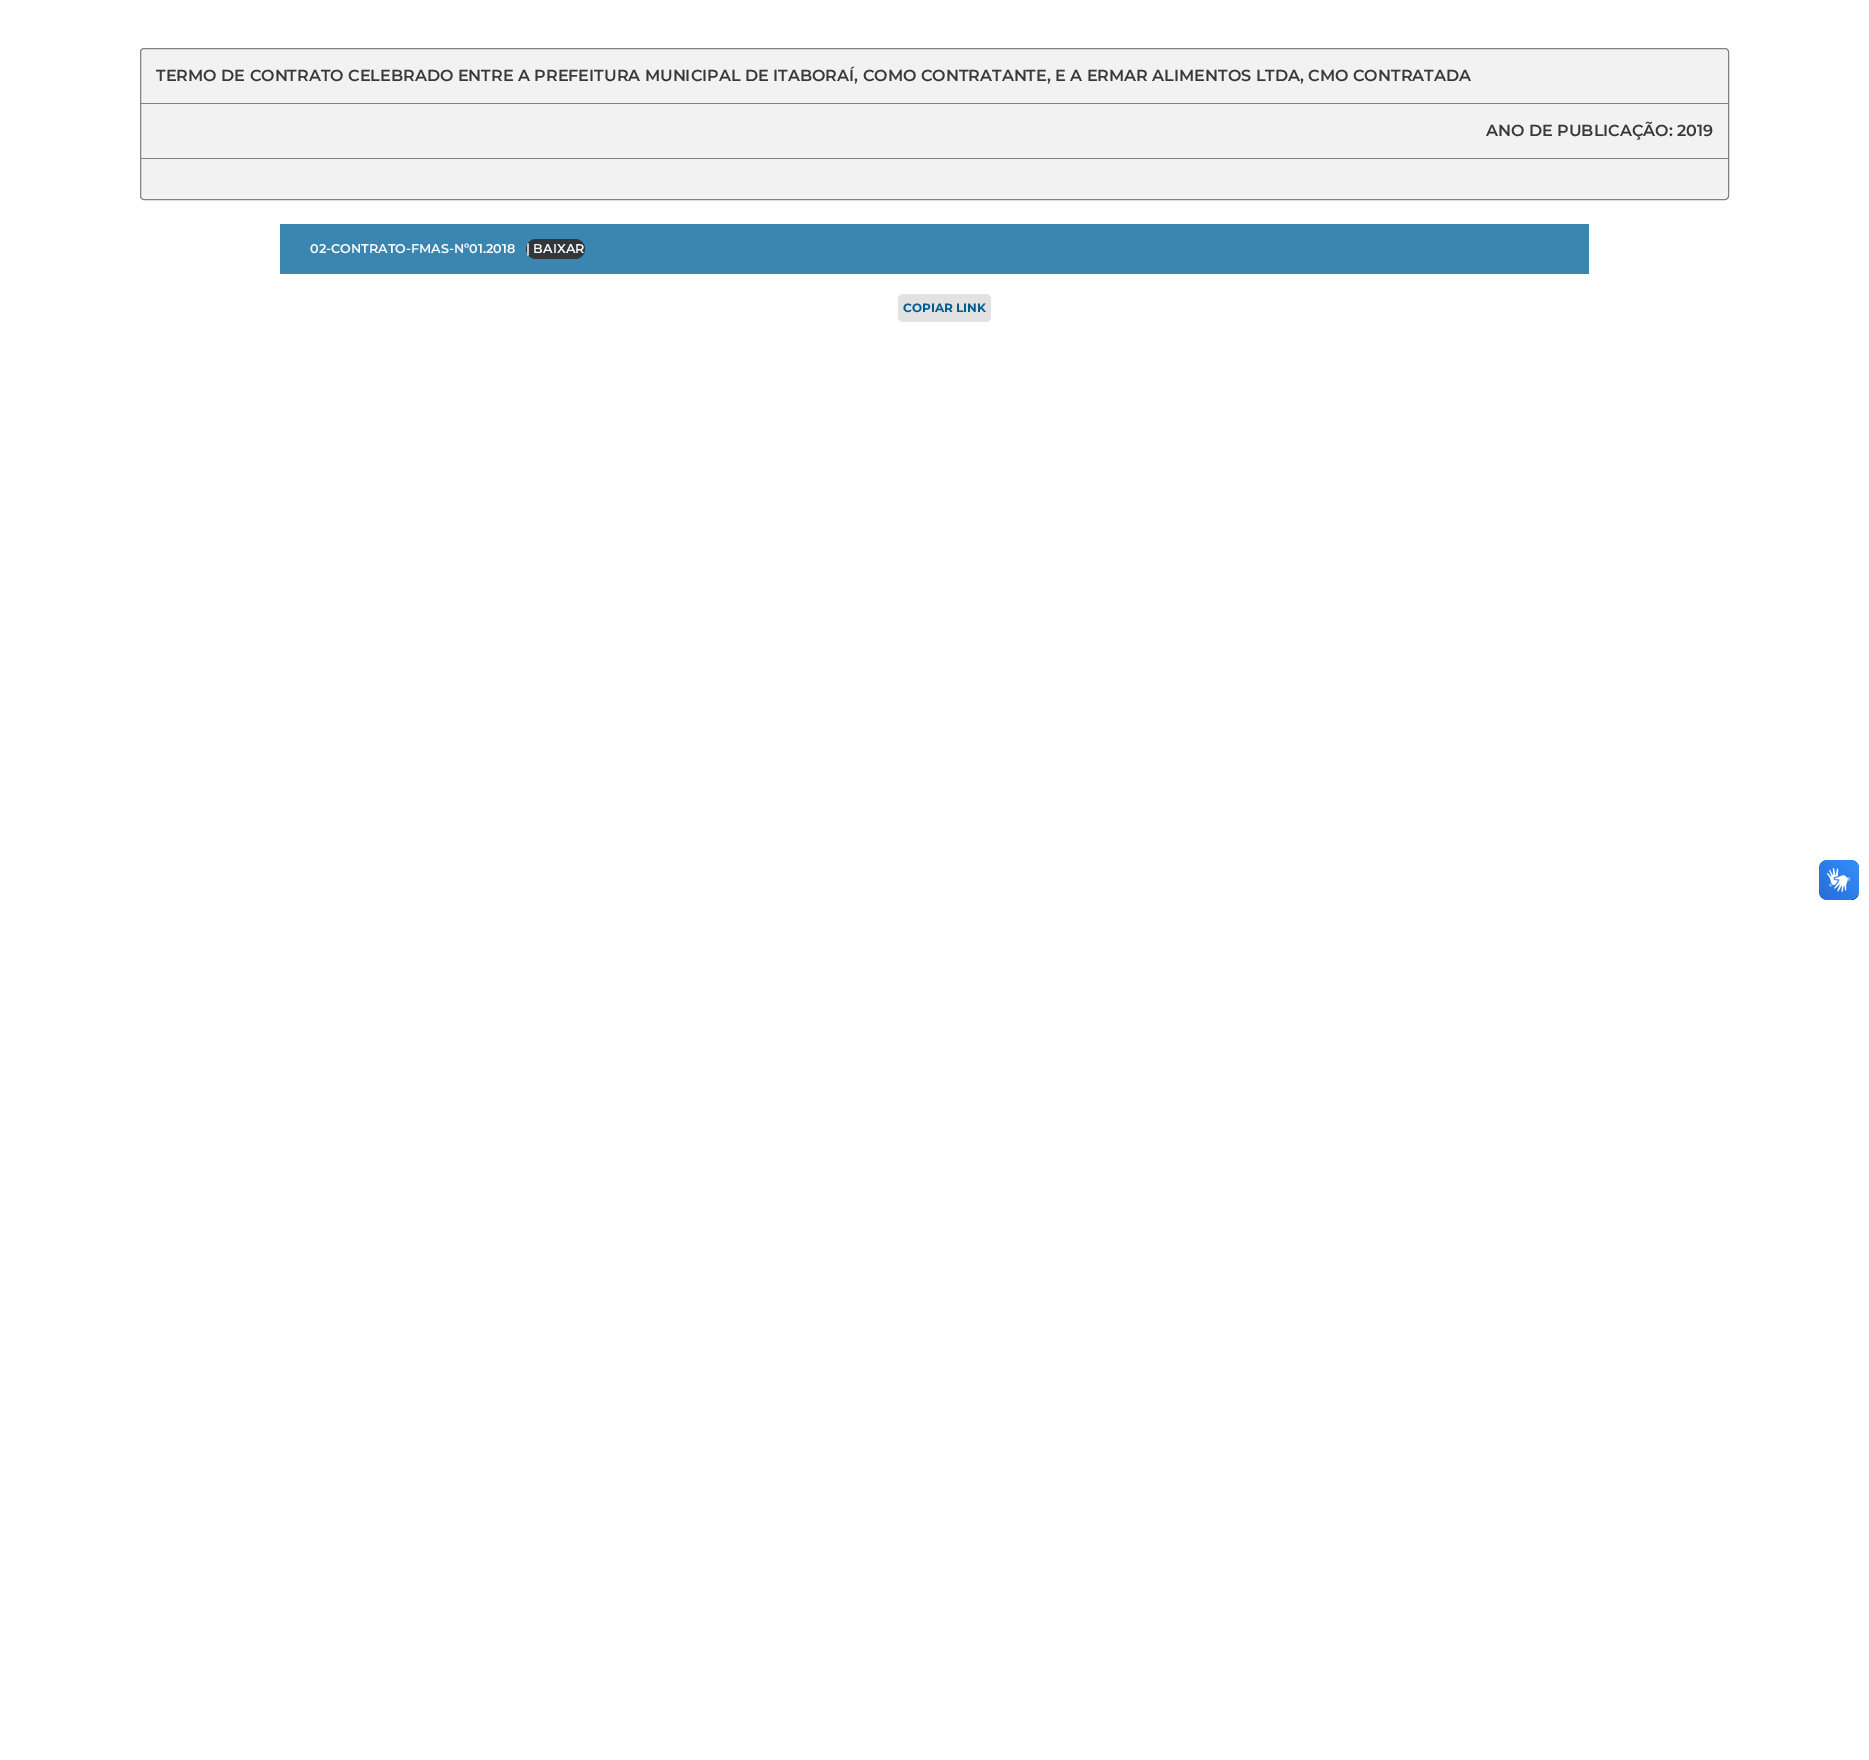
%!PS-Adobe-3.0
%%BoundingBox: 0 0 1869 1760
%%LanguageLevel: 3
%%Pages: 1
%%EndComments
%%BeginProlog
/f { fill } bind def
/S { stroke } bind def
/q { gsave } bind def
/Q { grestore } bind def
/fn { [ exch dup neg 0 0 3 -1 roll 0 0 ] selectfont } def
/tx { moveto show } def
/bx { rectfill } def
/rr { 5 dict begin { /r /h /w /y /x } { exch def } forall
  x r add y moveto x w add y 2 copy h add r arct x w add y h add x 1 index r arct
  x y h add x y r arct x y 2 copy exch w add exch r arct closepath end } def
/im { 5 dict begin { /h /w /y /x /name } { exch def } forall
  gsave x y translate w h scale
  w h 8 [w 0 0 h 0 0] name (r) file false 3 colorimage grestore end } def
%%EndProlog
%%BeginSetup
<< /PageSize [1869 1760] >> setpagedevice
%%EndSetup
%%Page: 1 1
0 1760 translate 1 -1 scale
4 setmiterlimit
1 setgray
0 0 1869 1760 bx
0.949 setgray
140.5 48.5 1588 151 3.5 rr q f Q
0.51 setgray
S
141 103 1587 1 bx
/Montserrat-SemiBold 16 fn
0.22 setgray
(TERMO DE CONTRATO CELEBRADO ENTRE A PREFEITURA MUNICIPAL DE ITABORAÍ, COMO CONTRATANTE, E A ERMAR ALIMENTOS LTDA, CMO CONTRATADA) 156 81 tx
0.51 setgray
141 158 1587 1 bx
0.22 setgray
(ANO DE PUBLICAÇÃO: 2019) 1486 136 tx
0.231 0.525 0.69 setrgbcolor
280 224 1309 50 bx
/Montserrat-SemiBold 12.75 fn
1 setgray
(02-CONTRATO-FMAS-Nº01.2018) 310 253 tx
0.196 0.216 0.235 setrgbcolor
526 239 59 20 10 rr f
1 setgray
(| BAIXAR) 526 253 tx
0.886 setgray
898 294 93 28 5 rr f
/Montserrat-Bold 12 fn
0 0.365 0.573 setrgbcolor
(COPIAR LINK) 903 312 tx
0 0.306 0.565 setrgbcolor
1819 860 40 40 8 rr f
(image0.raw) 1819 860 40 40 im
(image1.raw) 1819 860 40 40 im
showpage
%%EOF
